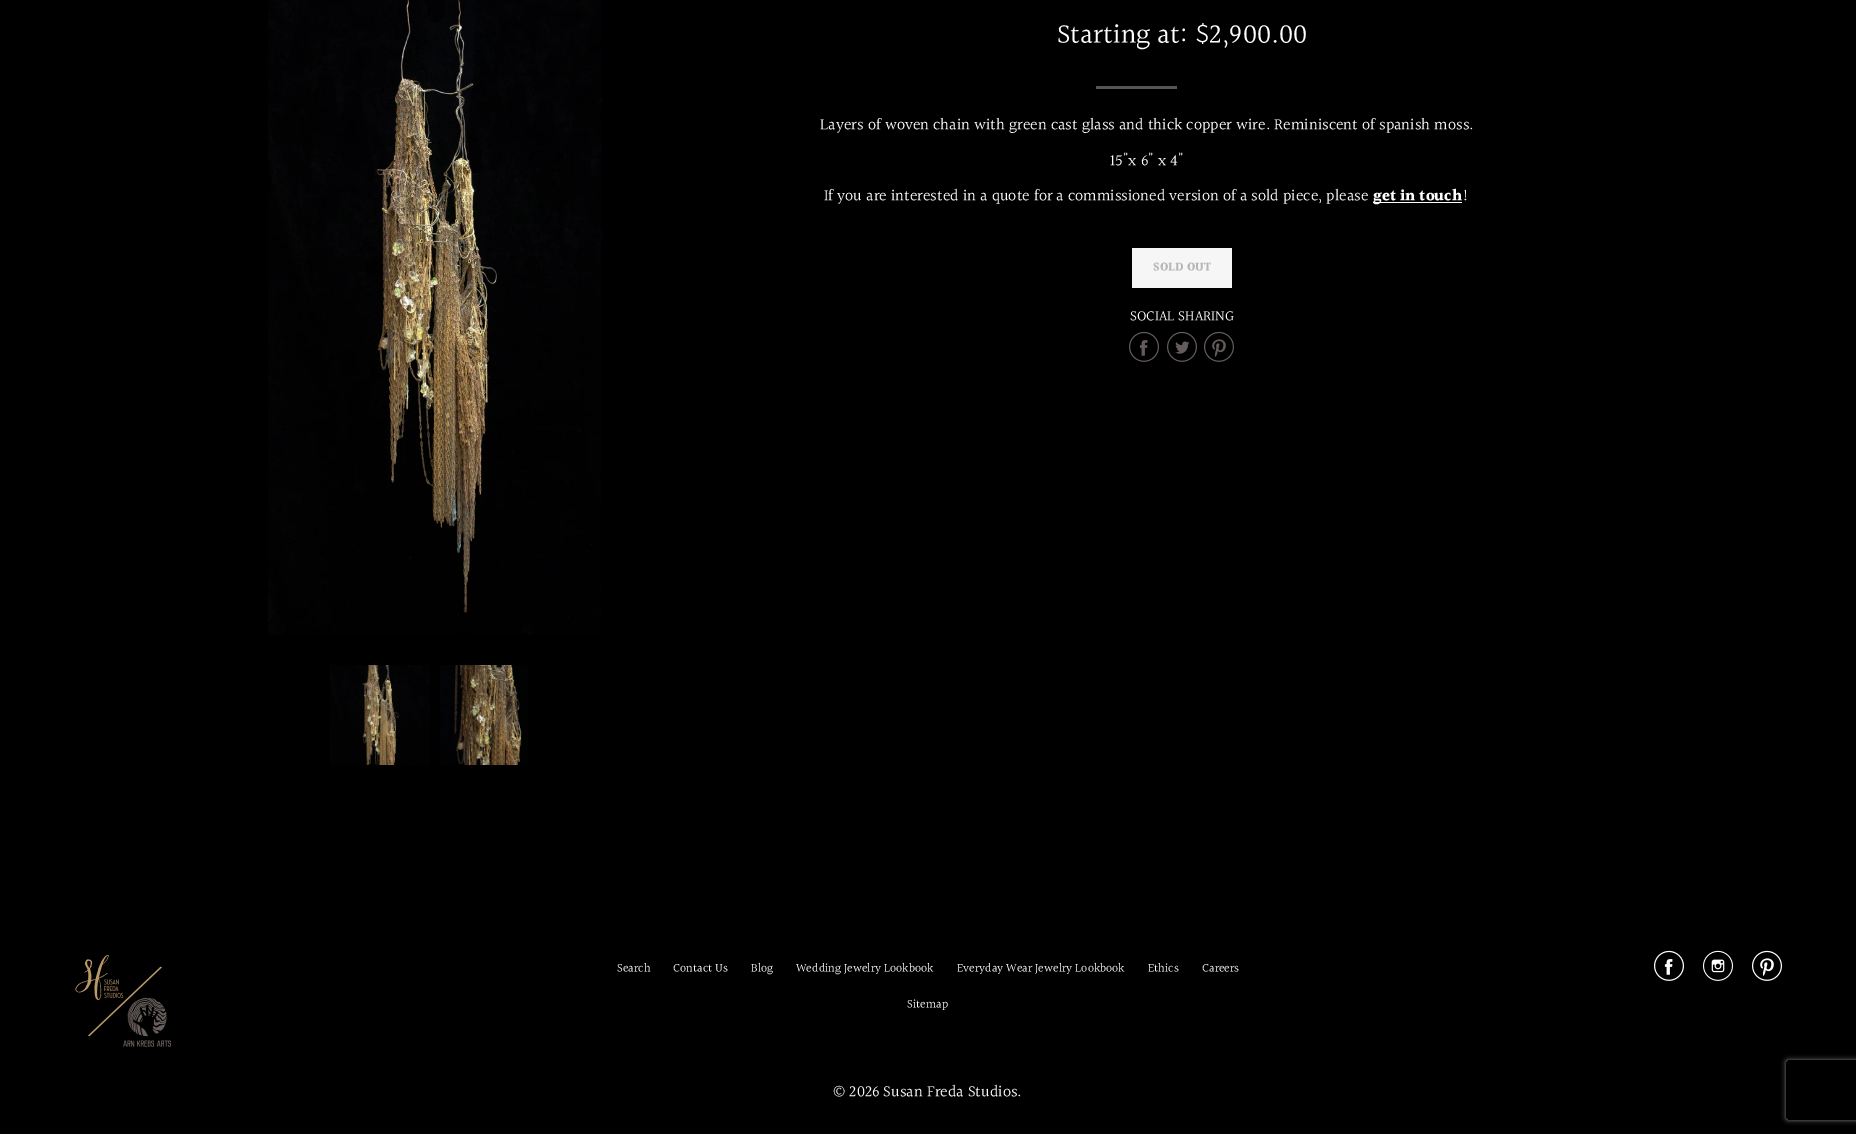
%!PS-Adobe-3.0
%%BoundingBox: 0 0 1856 1134
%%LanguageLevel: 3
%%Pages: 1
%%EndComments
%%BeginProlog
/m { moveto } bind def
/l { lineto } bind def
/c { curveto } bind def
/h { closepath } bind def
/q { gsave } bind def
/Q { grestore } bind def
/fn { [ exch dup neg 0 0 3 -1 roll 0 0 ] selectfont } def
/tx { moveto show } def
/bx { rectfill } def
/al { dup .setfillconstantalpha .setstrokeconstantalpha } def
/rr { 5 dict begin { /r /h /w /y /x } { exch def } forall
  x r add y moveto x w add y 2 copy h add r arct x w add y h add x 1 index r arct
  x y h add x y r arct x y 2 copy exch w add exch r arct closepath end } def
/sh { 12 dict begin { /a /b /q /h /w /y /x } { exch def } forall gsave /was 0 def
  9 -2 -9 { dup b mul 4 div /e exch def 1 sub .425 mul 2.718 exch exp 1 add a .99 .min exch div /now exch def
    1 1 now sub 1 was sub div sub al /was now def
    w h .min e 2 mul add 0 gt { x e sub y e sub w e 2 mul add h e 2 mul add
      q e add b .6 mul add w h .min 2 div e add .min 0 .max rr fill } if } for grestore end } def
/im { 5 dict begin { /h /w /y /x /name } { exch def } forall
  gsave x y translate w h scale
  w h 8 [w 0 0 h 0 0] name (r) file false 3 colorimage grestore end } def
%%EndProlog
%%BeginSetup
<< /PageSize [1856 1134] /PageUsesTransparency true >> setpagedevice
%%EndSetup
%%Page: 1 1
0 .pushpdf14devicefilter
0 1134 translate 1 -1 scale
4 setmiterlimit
0 setgray
0 0 1856 1134 bx
(image0.raw) 268 0 334 635 im
(image1.raw) 330 665 100 100 im
(image2.raw) 440 665 88 100 im
/Halant-Regular 28 fn
1 setgray
(Starting at: $2,900.00) 1057 44 tx
0.337 setgray
1096 86 81 3 bx
/Halant-Regular 16 fn
1 setgray
(Layers of woven chain with green cast glass and thick copper wire. Reminiscent of spanish moss.) 820 130 tx
(15"x 6" x 4") 1110 166 tx
(If you are interested in a quote for a commissioned version of a sold piece, please) 824 201 tx
1373 202 89 1 bx
/Halant-Bold 16 fn
(get in touch) 1373 201 tx
/Halant-Regular 16 fn
(!) 1462 201 tx
0.965 setgray
1132 248 100 40 bx
/Halant-Bold 12 fn
0.714 setgray
(SOLD OUT) 1153 271 tx
/Halant-Regular 14.5 fn
1 setgray
(SOCIAL SHARING) 1130 321 tx
(image3.raw) 1129 331 30 31 im
(image4.raw) 1167 331 30 31 im
(image5.raw) 1204 331 30 31 im
(image6.raw) 75 955 96 92 im
/Halant-Regular 12 fn
(Search) 617 972 tx
(Contact Us) 673 972 tx
q
751 961 22 16 rectclip
(Blog) 751 972 tx
Q
(Wedding Jewelry Lookbook) 796 972 tx
(Everyday Wear Jewelry Lookbook) 957 972 tx
(Ethics) 1148 972 tx
(Careers) 1202 972 tx
(Sitemap) 907 1008 tx
(image7.raw) 1654 950 30 31 im
(image8.raw) 1703 950 30 31 im
(image9.raw) 1752 950 30 31 im
/Halant-Regular 16 fn
(© 2026 Susan Freda Studios.) 833 1097 tx
q
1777 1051 m 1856 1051 l 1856 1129 l 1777 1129 l h 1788 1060 m 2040 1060 l 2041 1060 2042 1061 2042 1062 c 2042 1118 l 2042 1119 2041 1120 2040 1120 c 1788 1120 l 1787 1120 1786 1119 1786 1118 c 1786 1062 l 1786 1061 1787 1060 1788 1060 c h eoclip newpath
0.502 setgray
1786 1060 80 60 2 2.5 1 sh
Q
.poppdf14devicefilter showpage
%%EOF
